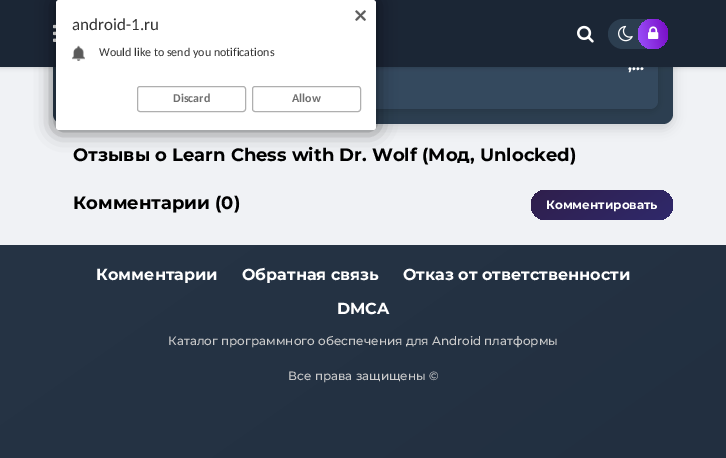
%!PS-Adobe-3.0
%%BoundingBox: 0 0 726 458
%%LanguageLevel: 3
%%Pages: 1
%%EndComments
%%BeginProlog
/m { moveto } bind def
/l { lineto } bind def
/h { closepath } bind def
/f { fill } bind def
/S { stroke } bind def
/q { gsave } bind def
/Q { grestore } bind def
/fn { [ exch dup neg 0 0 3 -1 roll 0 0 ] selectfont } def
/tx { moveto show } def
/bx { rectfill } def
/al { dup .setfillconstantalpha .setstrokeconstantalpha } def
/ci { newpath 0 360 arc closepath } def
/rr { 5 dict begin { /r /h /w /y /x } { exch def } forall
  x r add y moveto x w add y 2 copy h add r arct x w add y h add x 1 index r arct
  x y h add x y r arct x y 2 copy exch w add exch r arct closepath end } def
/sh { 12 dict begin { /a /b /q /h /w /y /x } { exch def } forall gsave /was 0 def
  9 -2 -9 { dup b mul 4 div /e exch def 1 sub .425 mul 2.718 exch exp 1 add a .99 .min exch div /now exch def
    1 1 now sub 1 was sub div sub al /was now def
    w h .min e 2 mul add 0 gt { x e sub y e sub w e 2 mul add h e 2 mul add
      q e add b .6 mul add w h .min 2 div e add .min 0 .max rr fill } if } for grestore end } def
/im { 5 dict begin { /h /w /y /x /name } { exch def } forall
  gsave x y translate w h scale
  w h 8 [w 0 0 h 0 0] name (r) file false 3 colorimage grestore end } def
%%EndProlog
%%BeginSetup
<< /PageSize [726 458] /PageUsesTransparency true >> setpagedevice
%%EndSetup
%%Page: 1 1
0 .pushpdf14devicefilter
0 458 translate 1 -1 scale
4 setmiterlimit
0.941 0.949 0.961 setrgbcolor
0 0 726 458 bx
0 setgray
53 -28 620 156 10 6 0.15 sh
0.173 0.243 0.314 setrgbcolor
53 -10 620 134 10 rr f
0 setgray
68 41 590 70 8 4 0.15 sh
0.204 0.286 0.369 setrgbcolor
68 39 590 70 8 rr f
0 setgray
0 0 726 67 0 2.5 0.2 sh
0.106 0.149 0.208 setrgbcolor
0 0 726 67 bx
(image2.raw) 53 24 3 18 im
0 setgray
56 0 320 130 3 10 0.54 sh
1 setgray
56 0 320 130 3 rr f
(image0.raw) 355 10 11 11 im
/Carlito-Regular 17 fn
0.2 setgray
(android-1.ru) 72 30 tx
(image1.raw) 72 45 13 16 im
/Carlito-Regular 12 fn
(Would like to send you notifications) 99 56 tx
0.686 setgray
137.5 86.5 108 25 2.5 rr S
/Carlito-Bold 12 fn
0.435 setgray
(Discard) 173 102 tx
0.686 setgray
252.5 86.5 108 25 2.5 rr S
0.435 setgray
(Allow) 292 102 tx
(image3.raw) 577 25 17 18 im
0.173 0.243 0.314 setrgbcolor
608 19 55 30 15 rr f
(image4.raw) 618 25 15 17 im
q 653 34 15 ci clip newpath
<< /ShadingType 2 /ColorSpace /DeviceRGB /Coords [670 31 636 37] /Extend [true true] /Function << /FunctionType 3 /Domain [0 1] /Functions [<< /FunctionType 2 /Domain [0 1] /C0 [0.471 0.047 0.773] /C1 [0.604 0.306 0.976] /N 1 >> << /FunctionType 2 /Domain [0 1] /C0 [0.604 0.306 0.976] /C1 [0.604 0.306 0.976] /N 1 >>] /Bounds [0.96] /Encode [0 1 0 1] >> >> shfill Q
(image5.raw) 648 26 11 13 im
/Montserrat-Bold 15 fn
1 setgray
(,…) 628 70 tx
/Montserrat-Bold 18 fn
0 setgray
(Отзывы о Learn Chess with Dr. Wolf \(Мод, Unlocked\)) 73 161 tx
(Комментарии \(0\)) 73 209 tx
q 531 190 142 30 15 rr clip newpath
<< /ShadingType 2 /ColorSpace /DeviceRGB /Coords [572 162 632 248] /Extend [true true] /Function << /FunctionType 2 /Domain [0 1] /C0 [0.184 0.122 0.298] /C1 [0.184 0.161 0.42] /N 1 >> >> shfill Q
/Montserrat-Bold 12 fn
1 setgray
(Комментировать) 546 209 tx
q 0 245 m 726 245 l 726 458 l 0 458 l h clip newpath
<< /ShadingType 2 /ColorSpace /DeviceRGB /Coords [-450 -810 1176 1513] /Extend [true true] /Function << /FunctionType 2 /Domain [0 1] /C0 [0.176 0.243 0.314] /C1 [0.106 0.149 0.208] /N 1 >> >> shfill Q
/Montserrat-Bold 16 fn
(Комментарии) 96 280 tx
(Обратная связь) 242 280 tx
(Отказ от ответственности) 403 280 tx
(DMCA) 337 314 tx
/Montserrat-Medium 12 fn
0.8 setgray
(Каталог программного обеспечения для Android платформы) 168 345 tx
(Все права защищены ©) 288 380 tx
.poppdf14devicefilter showpage
%%EOF
